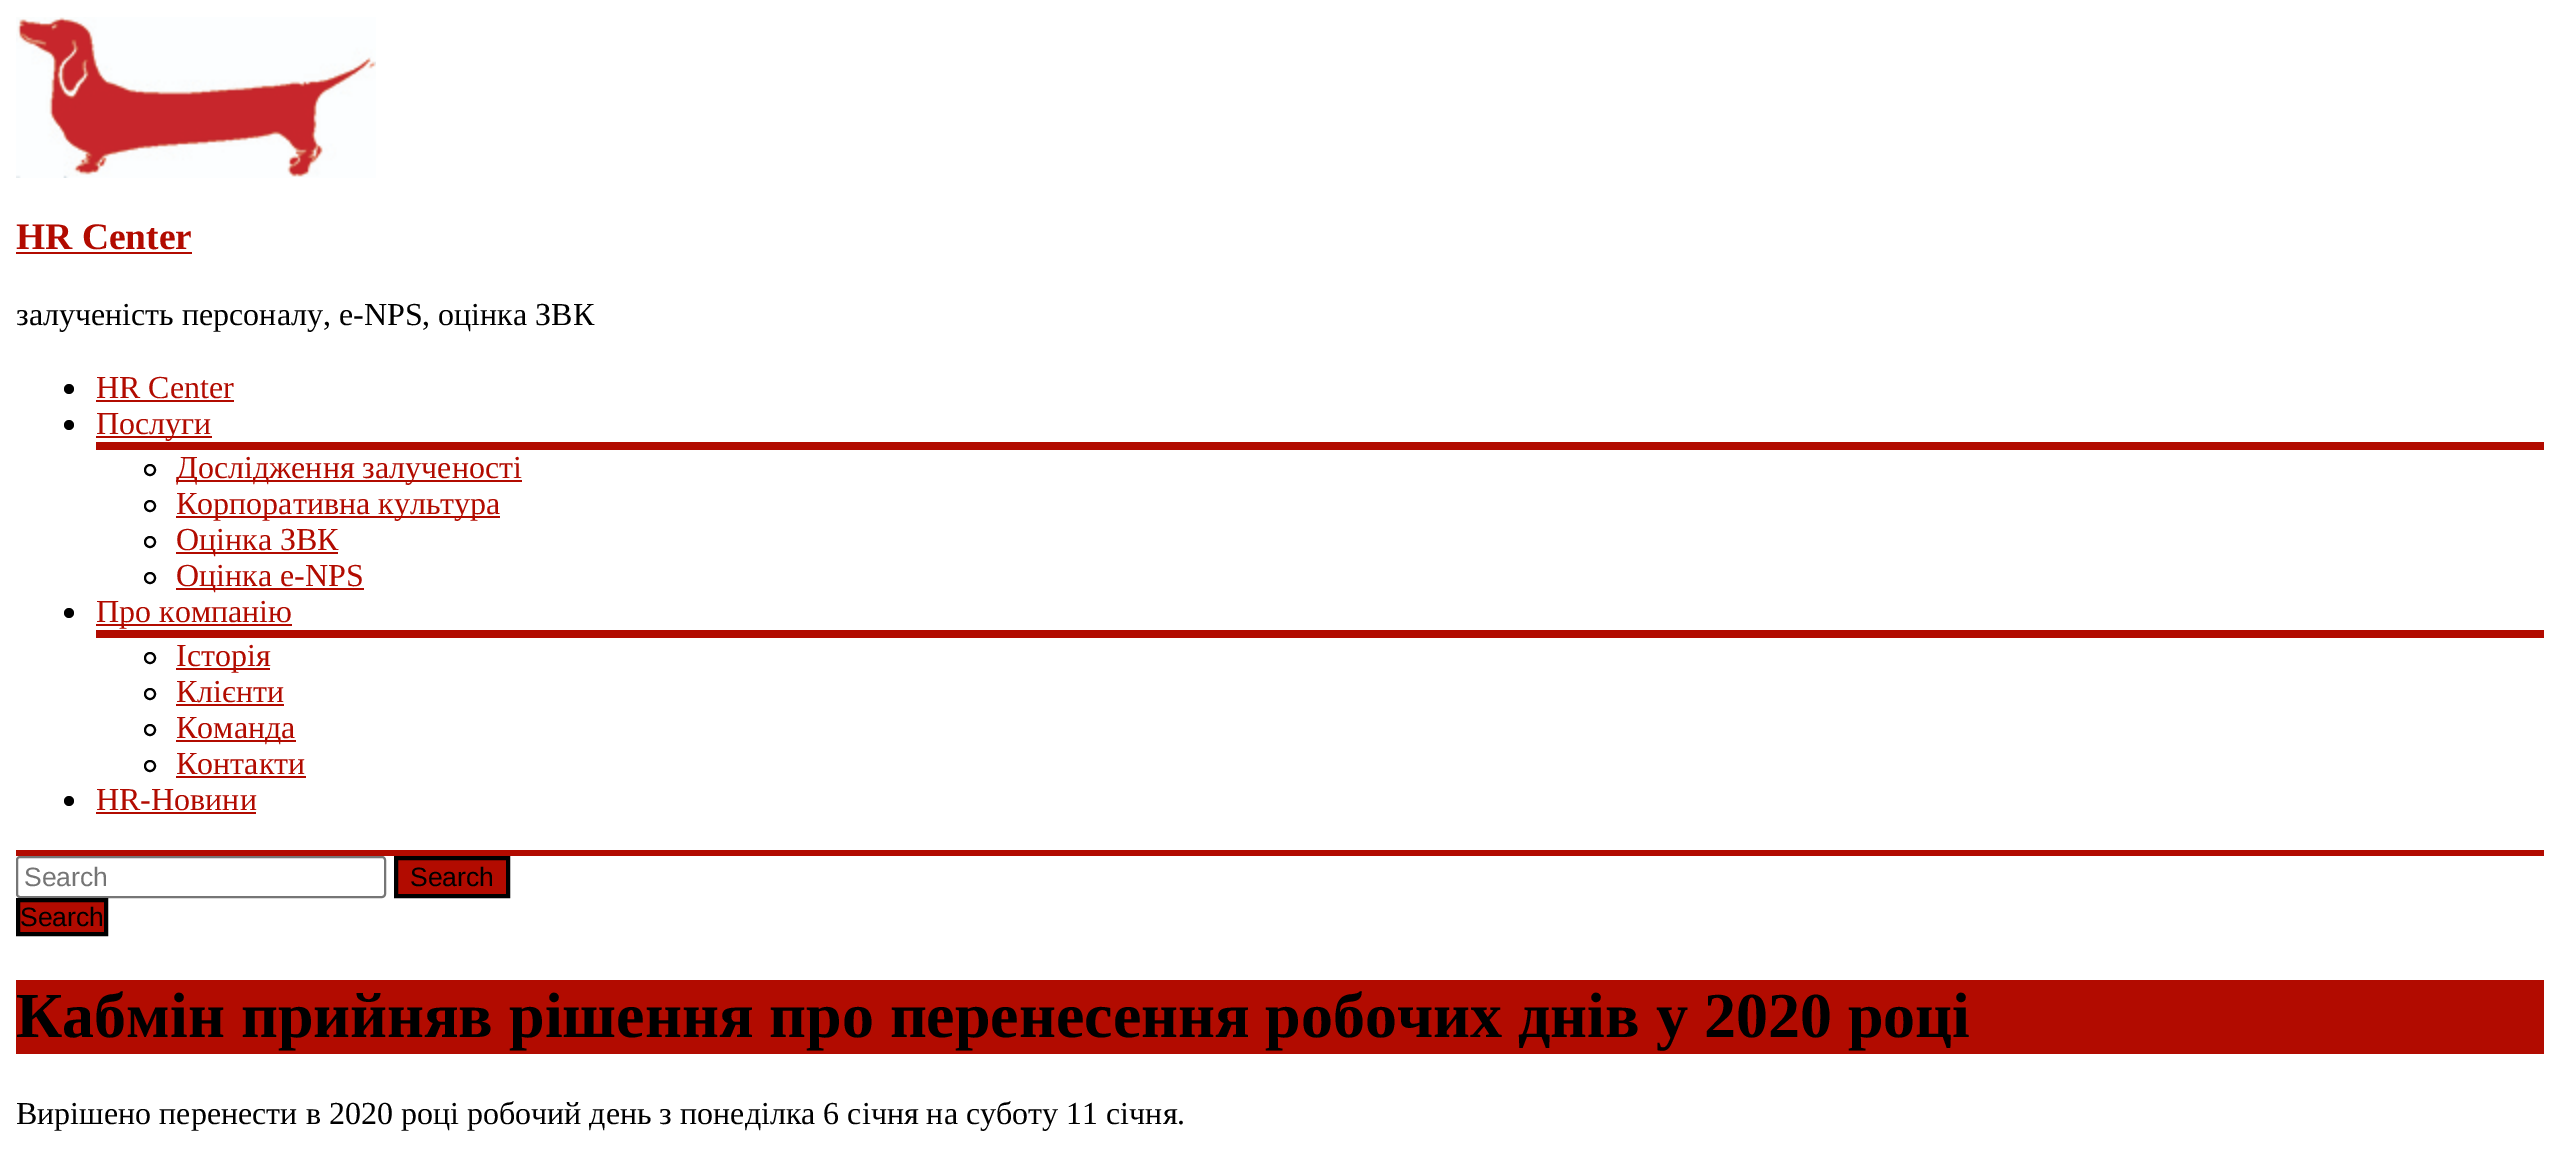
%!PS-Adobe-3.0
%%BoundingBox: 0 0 2560 1152
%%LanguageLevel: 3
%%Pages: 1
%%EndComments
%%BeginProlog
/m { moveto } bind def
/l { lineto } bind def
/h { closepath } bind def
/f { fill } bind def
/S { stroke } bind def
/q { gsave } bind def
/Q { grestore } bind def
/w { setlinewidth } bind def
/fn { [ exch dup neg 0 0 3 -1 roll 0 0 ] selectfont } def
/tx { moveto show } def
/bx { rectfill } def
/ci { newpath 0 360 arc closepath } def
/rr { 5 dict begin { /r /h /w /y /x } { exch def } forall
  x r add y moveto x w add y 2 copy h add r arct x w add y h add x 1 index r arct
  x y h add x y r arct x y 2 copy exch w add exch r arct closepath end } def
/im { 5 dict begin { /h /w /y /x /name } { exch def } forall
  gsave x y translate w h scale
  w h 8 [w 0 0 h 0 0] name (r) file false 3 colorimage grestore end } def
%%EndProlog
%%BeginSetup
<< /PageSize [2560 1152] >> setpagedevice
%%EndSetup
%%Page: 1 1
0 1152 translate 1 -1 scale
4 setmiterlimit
1 setgray
0 0 2560 1152 bx
(image0.raw) 16 17 360 161 im
/LiberationSerif-Bold 37.5 fn
0.698 0.043 0 setrgbcolor
(HR Center) 16 249 tx
16 252 176 2 bx
/LiberationSerif-Regular 32 fn
0 setgray
(залученість персоналу, e-NPS, оцінка ЗВК) 16 325 tx
69 389 5 ci f
0.698 0.043 0 setrgbcolor
(HR Center) 96 398 tx
96 400 138 2 bx
0 setgray
69 425 5 ci f
0.698 0.043 0 setrgbcolor
96 436 116 2 bx
(Послуги) 96 434 tx
96 442 2448 8 bx
0 setgray
2 w
150 470 5 ci S
0.698 0.043 0 setrgbcolor
176 480 346 2 bx
(Дослідження залученості) 176 478 tx
0 setgray
150 506 5 ci S
0.698 0.043 0 setrgbcolor
176 516 324 2 bx
(Корпоративна культура) 176 514 tx
0 setgray
150 542 5 ci S
0.698 0.043 0 setrgbcolor
176 552 162 2 bx
(Оцінка ЗВК) 176 550 tx
0 setgray
150 578 5 ci S
0.698 0.043 0 setrgbcolor
176 588 188 2 bx
(Оцінка e-NPS) 176 586 tx
0 setgray
69 613 5 ci f
0.698 0.043 0 setrgbcolor
96 624 196 2 bx
(Про компанію) 96 622 tx
96 630 2448 8 bx
0 setgray
150 658 5 ci S
0.698 0.043 0 setrgbcolor
176 668 94 2 bx
(Історія) 176 666 tx
0 setgray
150 694 5 ci S
0.698 0.043 0 setrgbcolor
(Клієнти) 176 702 tx
176 704 108 2 bx
0 setgray
150 730 5 ci S
0.698 0.043 0 setrgbcolor
176 740 120 2 bx
(Команда) 176 738 tx
0 setgray
150 766 5 ci S
0.698 0.043 0 setrgbcolor
(Контакти) 176 774 tx
176 776 130 2 bx
0 setgray
69 801 5 ci f
0.698 0.043 0 setrgbcolor
(HR-Новини) 96 810 tx
96 812 160 2 bx
16 850 2528 6 bx
0.463 setgray
17 857 368 40 3 rr S
/LiberationSans-Regular 26.5 fn
0.459 setgray
(Search) 24 886 tx
0.698 0.043 0 setrgbcolor
396 858 m 508 858 l 508 896 l 396 896 l h q f Q
0 setgray
4 w
S
(Search) 410 886 tx
0.698 0.043 0 setrgbcolor
18 900 m 106 900 l 106 934 l 18 934 l h q f Q
0 setgray
S
(Search) 20 926 tx
0.698 0.043 0 setrgbcolor
16 980 2528 74 bx
/LiberationSerif-Bold 64 fn
0 setgray
(Кабмін прийняв рішення про перенесення робочих днів у 2020 році) 16 1037 tx
/LiberationSerif-Regular 32 fn
(Вирішено перенести в 2020 році робочий день з понеділка 6 січня на суботу 11 січня.) 16 1124 tx
showpage
%%EOF
